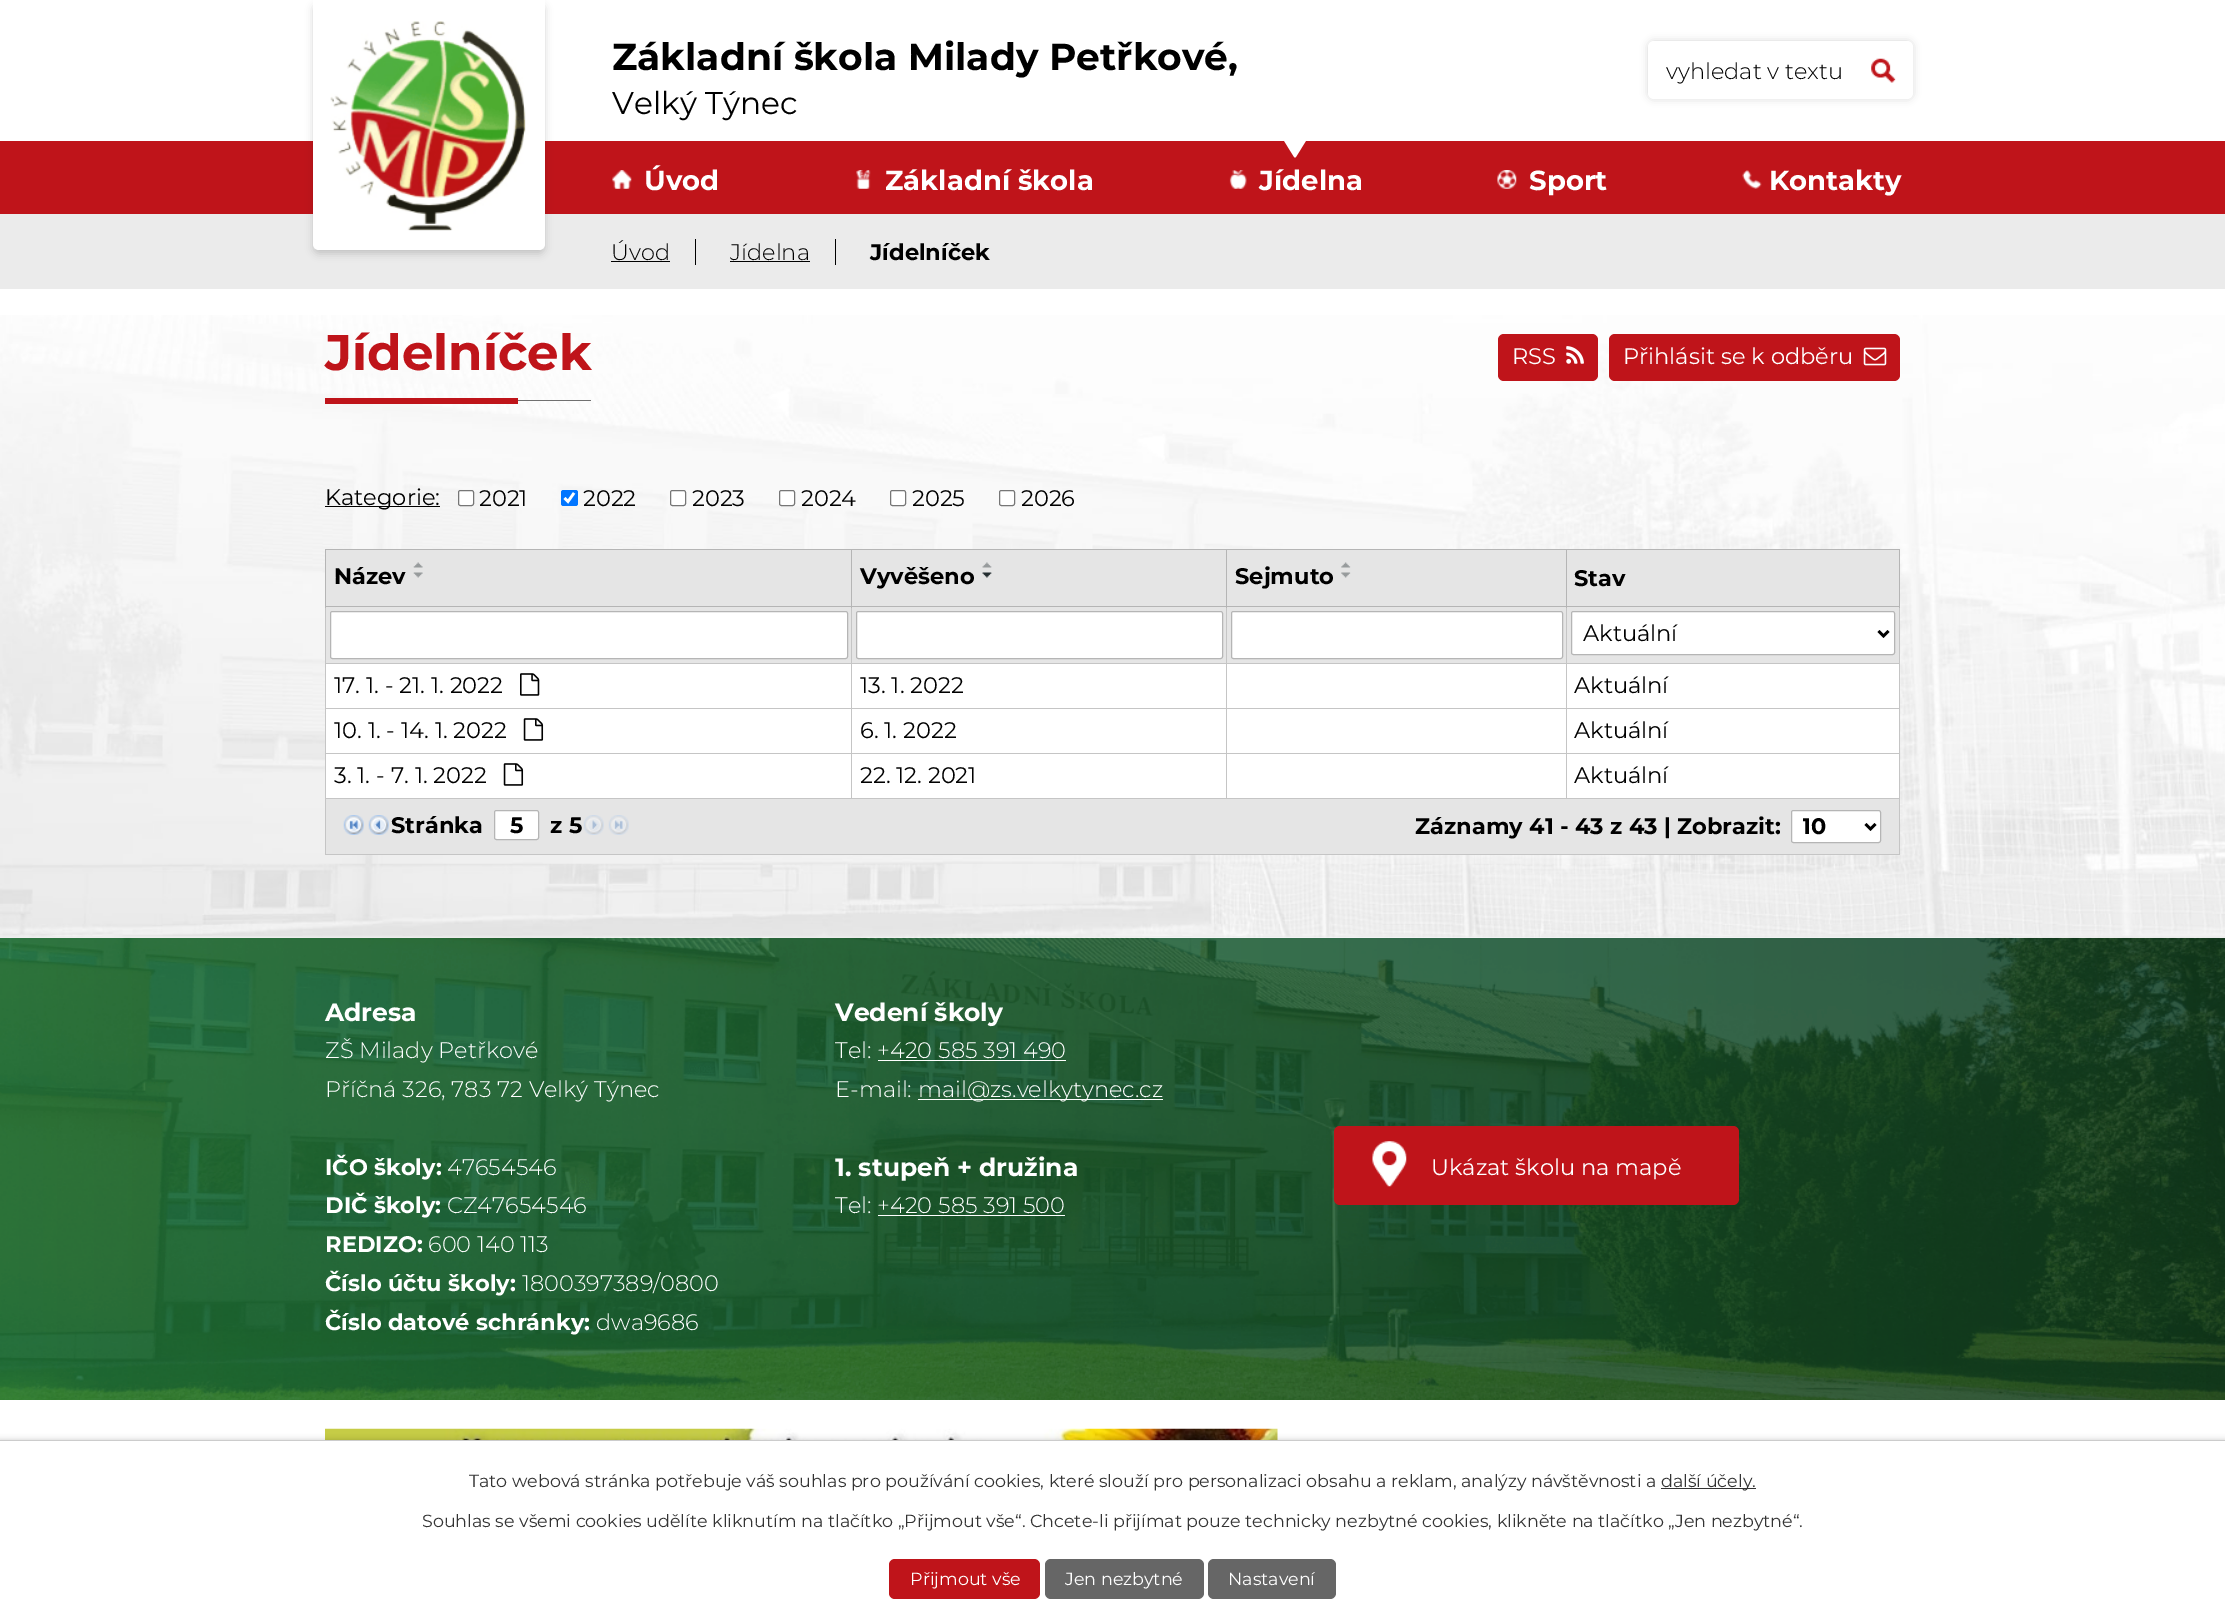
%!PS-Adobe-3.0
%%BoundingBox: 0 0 2225 1622
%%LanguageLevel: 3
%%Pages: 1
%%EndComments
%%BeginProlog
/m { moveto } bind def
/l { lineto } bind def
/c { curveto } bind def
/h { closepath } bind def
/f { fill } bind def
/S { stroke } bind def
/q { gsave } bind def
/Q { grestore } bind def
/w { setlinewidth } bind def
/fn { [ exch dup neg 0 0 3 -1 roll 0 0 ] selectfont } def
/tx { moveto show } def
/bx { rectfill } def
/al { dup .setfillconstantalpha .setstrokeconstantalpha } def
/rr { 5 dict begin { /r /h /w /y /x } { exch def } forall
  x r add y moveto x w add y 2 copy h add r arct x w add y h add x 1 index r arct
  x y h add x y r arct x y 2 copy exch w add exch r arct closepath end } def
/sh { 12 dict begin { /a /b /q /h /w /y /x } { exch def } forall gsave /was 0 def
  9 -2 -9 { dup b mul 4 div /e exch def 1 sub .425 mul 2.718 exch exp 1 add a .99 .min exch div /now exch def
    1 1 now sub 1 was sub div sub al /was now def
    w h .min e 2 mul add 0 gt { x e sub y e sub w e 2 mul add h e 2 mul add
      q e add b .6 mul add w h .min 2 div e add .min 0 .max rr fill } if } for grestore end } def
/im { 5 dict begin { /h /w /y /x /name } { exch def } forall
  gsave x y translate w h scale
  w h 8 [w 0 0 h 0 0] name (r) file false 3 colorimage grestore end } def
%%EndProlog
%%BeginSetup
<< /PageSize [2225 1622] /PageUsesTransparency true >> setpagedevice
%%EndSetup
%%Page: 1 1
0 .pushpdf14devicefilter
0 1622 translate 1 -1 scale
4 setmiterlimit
1 setgray
0 0 2225 1622 bx
0.749 0.078 0.102 setrgbcolor
0 141 2225 73 bx
0.922 setgray
0 214 2225 75 bx
0 setgray
313 4 232 250 6 4 0.16 sh
1 setgray
313 0 m 545 0 l 545 244 l 545 247.5 542.5 250 539 250 c 319 250 l 315.5 250 313 247.5 313 244 c h f
(image0.raw) 330 21 196 210 im
/Montserrat-Bold 37.6 fn
0 setgray
(Základní škola Milady Petřkové,) 612 70 tx
/Montserrat-Regular 31.25 fn
(Velký Týnec) 612 114 tx
1648 41 265 58 6 4 0.16 sh
1 setgray
1648.5 41.5 264 57 5.5 rr q f Q
S
/Montserrat-Light 22.5 fn
0 setgray
(vyhledat v textu) 1666 79 tx
(image1.raw) 1871 58 25 25 im
(image2.raw) 612 170 20 19 im
/Montserrat-Bold 27.5 fn
1 setgray
(Úvod) 644 190 tx
(image3.raw) 856 170 15 19 im
(Základní škola) 885 190 tx
(image4.raw) 1284 141 22 17 im
(image5.raw) 1229 170 18 19 im
(Jídelna) 1259 190 tx
(image6.raw) 1497 170 20 19 im
(Sport) 1529 190 tx
(image7.raw) 1742 170 20 19 im
(Kontakty) 1769 190 tx
/Montserrat-Light 22.5 fn
0 setgray
(Úvod) 611 260 tx
611 261 59 1 bx
695 239 1 26 bx
(Jídelna) 730 260 tx
730 261 80 1 bx
835 239 1 26 bx
/Montserrat-Bold 22.5 fn
(Jídelníček) 870 260 tx
q 0 938 m 2225 938 l 2225 1400 l 0 1400 l h clip newpath
<< /ShadingType 2 /ColorSpace /DeviceRGB /Coords [0 1241 2225 1241] /Extend [true true] /Function << /FunctionType 2 /Domain [0 1] /C0 [0.122 0.463 0.204] /C1 [0.063 0.231 0.102] /N 1 >> >> shfill Q
(image23.raw) 0 937 2225 463 im
(image8.raw) 0 315 2225 623 im
/Montserrat-Bold 50 fn
0.749 0.078 0.102 setrgbcolor
(Jídelníček) 325 370 tx
325 398 193 6 bx
0.439 setgray
518 400 73 1 bx
0.749 0.078 0.102 setrgbcolor
1498 334 100 47 6 rr f
/Montserrat-Regular 22.5 fn
1 setgray
(RSS) 1512 364 tx
(image9.raw) 1566 346 18 18 im
0.749 0.078 0.102 setrgbcolor
1609 334 291 47 6 rr f
1 setgray
(Přihlásit se k odběru) 1623 364 tx
(image10.raw) 1863 347 24 19 im
0 setgray
325 506 115 1 bx
(Kategorie:) 325 505 tx
1 setgray
458.5 490.5 15 15 2 rr q f Q
0.463 setgray
S
0 setgray
(2021) 479 506 tx
0 0.459 1 setrgbcolor
561 490 17 16 2.5 rr f
1 setgray
2.6 w
564.5 498 m 568 501.5 l 574 493 l S
0 setgray
(2022) 583 506 tx
1 setgray
670.5 490.5 15 15 2 rr q f Q
0.463 setgray
1 w
S
0 setgray
(2023) 692 506 tx
1 setgray
779.5 490.5 15 15 2 rr q f Q
0.463 setgray
S
0 setgray
(2024) 801 506 tx
1 setgray
890.5 490.5 15 15 2 rr q f Q
0.463 setgray
S
0 setgray
(2025) 912 506 tx
1 setgray
999.5 490.5 15 15 2 rr q f Q
0.463 setgray
S
0 setgray
(2026) 1021 506 tx
0.898 setgray
326 550 1240 58 bx
0.71 setgray
1566 549 334 1 bx
0.898 setgray
1567 550 332 58 bx
0.773 setgray
1566 663 334 1 bx
1566 708 334 1 bx
1566 753 334 1 bx
1899 753 1 46 bx
1899 708 1 46 bx
1899 606 1 103 bx
0.71 setgray
1899 549 1 59 bx
0.898 setgray
326 608 1573 55 bx
1 setgray
326 664 1573 44 bx
326 709 1573 44 bx
326 754 1573 44 bx
0.773 setgray
1566 798 334 1 bx
1566 753 1 46 bx
1226 753 342 1 bx
1566 708 1 46 bx
1226 708 342 1 bx
1566 663 1 46 bx
1226 663 342 1 bx
1566 606 1 58 bx
0.71 setgray
1566 606 334 1 bx
1566 549 1 59 bx
1226 549 342 1 bx
0.773 setgray
1226 798 342 1 bx
1226 753 1 46 bx
851 753 377 1 bx
1226 708 1 46 bx
851 708 377 1 bx
1226 663 1 46 bx
851 663 377 1 bx
1226 606 1 58 bx
0.71 setgray
1226 606 342 1 bx
1226 549 1 59 bx
851 549 377 1 bx
0.773 setgray
851 798 377 1 bx
851 753 1 46 bx
325 753 528 1 bx
851 708 1 46 bx
325 708 528 1 bx
851 663 1 46 bx
325 663 528 1 bx
851 606 1 58 bx
0.71 setgray
851 606 377 1 bx
851 549 1 59 bx
325 549 528 1 bx
0.773 setgray
325 798 528 1 bx
325 753 1 46 bx
325 708 1 46 bx
325 606 1 103 bx
0.71 setgray
325 606 528 1 bx
325 549 1 59 bx
/Montserrat-Bold 22.5 fn
0 setgray
(Název) 334 584 tx
(image11.raw) 413 562 10 6 im
(image12.raw) 413 572 10 6 im
(Vyvěšeno) 860 584 tx
(image13.raw) 982 562 10 6 im
(image14.raw) 982 572 10 6 im
(Sejmuto) 1235 584 tx
(image15.raw) 1341 562 10 6 im
(image16.raw) 1341 572 10 6 im
(Stav) 1574 586 tx
1 setgray
330.5 611.5 517 47 2 rr q f Q
0.71 setgray
S
1 setgray
856.5 611.5 366 47 2 rr q f Q
0.71 setgray
S
1 setgray
1231.5 611.5 331 47 2 rr q f Q
0.71 setgray
S
1 setgray
1571.5 611.5 323 43 2 rr q f Q
0.71 setgray
S
0 setgray
2.5 w
1878.5 631 m 1883.5 636 l 1888.5 631 l S
/Montserrat-Regular 22.5 fn
(Aktuální) 1583 641 tx
(17. 1. - 21. 1. 2022) 334 693 tx
(image17.raw) 520 673 20 23 im
(13. 1. 2022) 860 693 tx
(Aktuální) 1574 693 tx
(10. 1. - 14. 1. 2022) 334 738 tx
(image18.raw) 523 718 21 23 im
(6. 1. 2022) 860 738 tx
(Aktuální) 1574 738 tx
(3. 1. - 7. 1. 2022) 334 783 tx
(image18.raw) 503 763 21 23 im
(22. 12. 2021) 860 783 tx
(Aktuální) 1574 783 tx
0.898 setgray
326 799 1573 55 bx
0.773 setgray
1899 798 1 57 bx
325 854 1575 1 bx
325 798 1 57 bx
(image19.raw) 343 815 21 20 im
(image20.raw) 368 815 21 20 im
/Montserrat-Bold 22.5 fn
0 setgray
(Stránka) 391 833 tx
1 setgray
494.5 810.5 44 29 2 rr q f Q
0.71 setgray
1 w
S
0 setgray
(5) 510 833 tx
(z 5) 550 833 tx
(image21.raw) 583 815 21 20 im
(image22.raw) 608 815 21 20 im
(Záznamy 41 - 43 z 43 | Zobrazit:) 1415 834 tx
1 setgray
1791.5 810.5 89 32 2 rr q f Q
0.71 setgray
S
0 setgray
2.5 w
1865.5 824 m 1870.5 829 l 1875.5 824 l S
q
1803 811 53 30 rectclip
(10) 1802 834 tx
Q
/Montserrat-Bold 25 fn
1 setgray
(Adresa) 325 1021 tx
/Montserrat-Light 22.5 fn
(ZŠ Milady Petřkové) 325 1058 tx
(Příčná 326, 783 72 Velký Týnec) 325 1097 tx
/Montserrat-Bold 22.5 fn
(IČO školy:) 325 1175 tx
/Montserrat-Light 22.5 fn
(47654546) 447 1175 tx
/Montserrat-Bold 22.5 fn
(DIČ školy:) 325 1213 tx
/Montserrat-Light 22.5 fn
(CZ47654546) 447 1213 tx
/Montserrat-Bold 22.5 fn
(REDIZO:) 325 1252 tx
/Montserrat-Light 22.5 fn
(600 140 113) 428 1252 tx
/Montserrat-Bold 22.5 fn
(Číslo účtu školy:) 325 1291 tx
/Montserrat-Light 22.5 fn
(1800397389/0800) 522 1291 tx
/Montserrat-Bold 22.5 fn
(Číslo datové schránky:) 325 1330 tx
/Montserrat-Light 22.5 fn
(dwa9686) 596 1330 tx
/Montserrat-Bold 25 fn
(Vedení školy) 835 1021 tx
/Montserrat-Light 22.5 fn
(Tel: +420 585 391 490) 835 1058 tx
878 1060 188 1 bx
(E-mail:) 835 1097 tx
918 1099 245 1 bx
(mail@zs.velkytynec.cz) 918 1097 tx
/Montserrat-Bold 25 fn
(1. stupeň + družina) 835 1176 tx
/Montserrat-Light 22.5 fn
(Tel: +420 585 391 500) 835 1213 tx
878 1215 187 1 bx
0.749 0.078 0.102 setrgbcolor
1334 1126 405 79 6 rr f
(image24.raw) 1372 1141 35 46 im
/Montserrat-Regular 22.5 fn
1 setgray
(Ukázat školu na mapě) 1431 1175 tx
(image25.raw) 325 1428 953 12 im
0 setgray
0 1440 2225 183 0 3 0.2 sh
1 setgray
0 1441 2225 181 bx
0.8 setgray
0 1440 2225 1 bx
/Montserrat-Regular 17.5 fn
0.2 setgray
(Tato webová stránka potřebuje váš souhlas pro používání cookies, které slouží pro personalizaci obsahu a reklam, analýzy návštěvnosti a) 469 1487 tx
1661 1488 95 1 bx
(další účely.) 1661 1487 tx
(Souhlas se všemi cookies udělíte kliknutím na tlačítko „Přijmout vše“. Chcete-li přijímat pouze technicky nezbytné cookies, klikněte na tlačítko „Jen nezbytné“.) 422 1527 tx
0.749 0.078 0.102 setrgbcolor
889 1559 151 40 6 rr f
1 setgray
(Přijmout vše) 910 1585 tx
0.4 setgray
1045 1559 159 40 6 rr f
1 setgray
(Jen nezbytné) 1065 1585 tx
0.4 setgray
1208 1559 128 40 6 rr f
1 setgray
(Nastavení) 1228 1585 tx
.poppdf14devicefilter showpage
%%EOF
